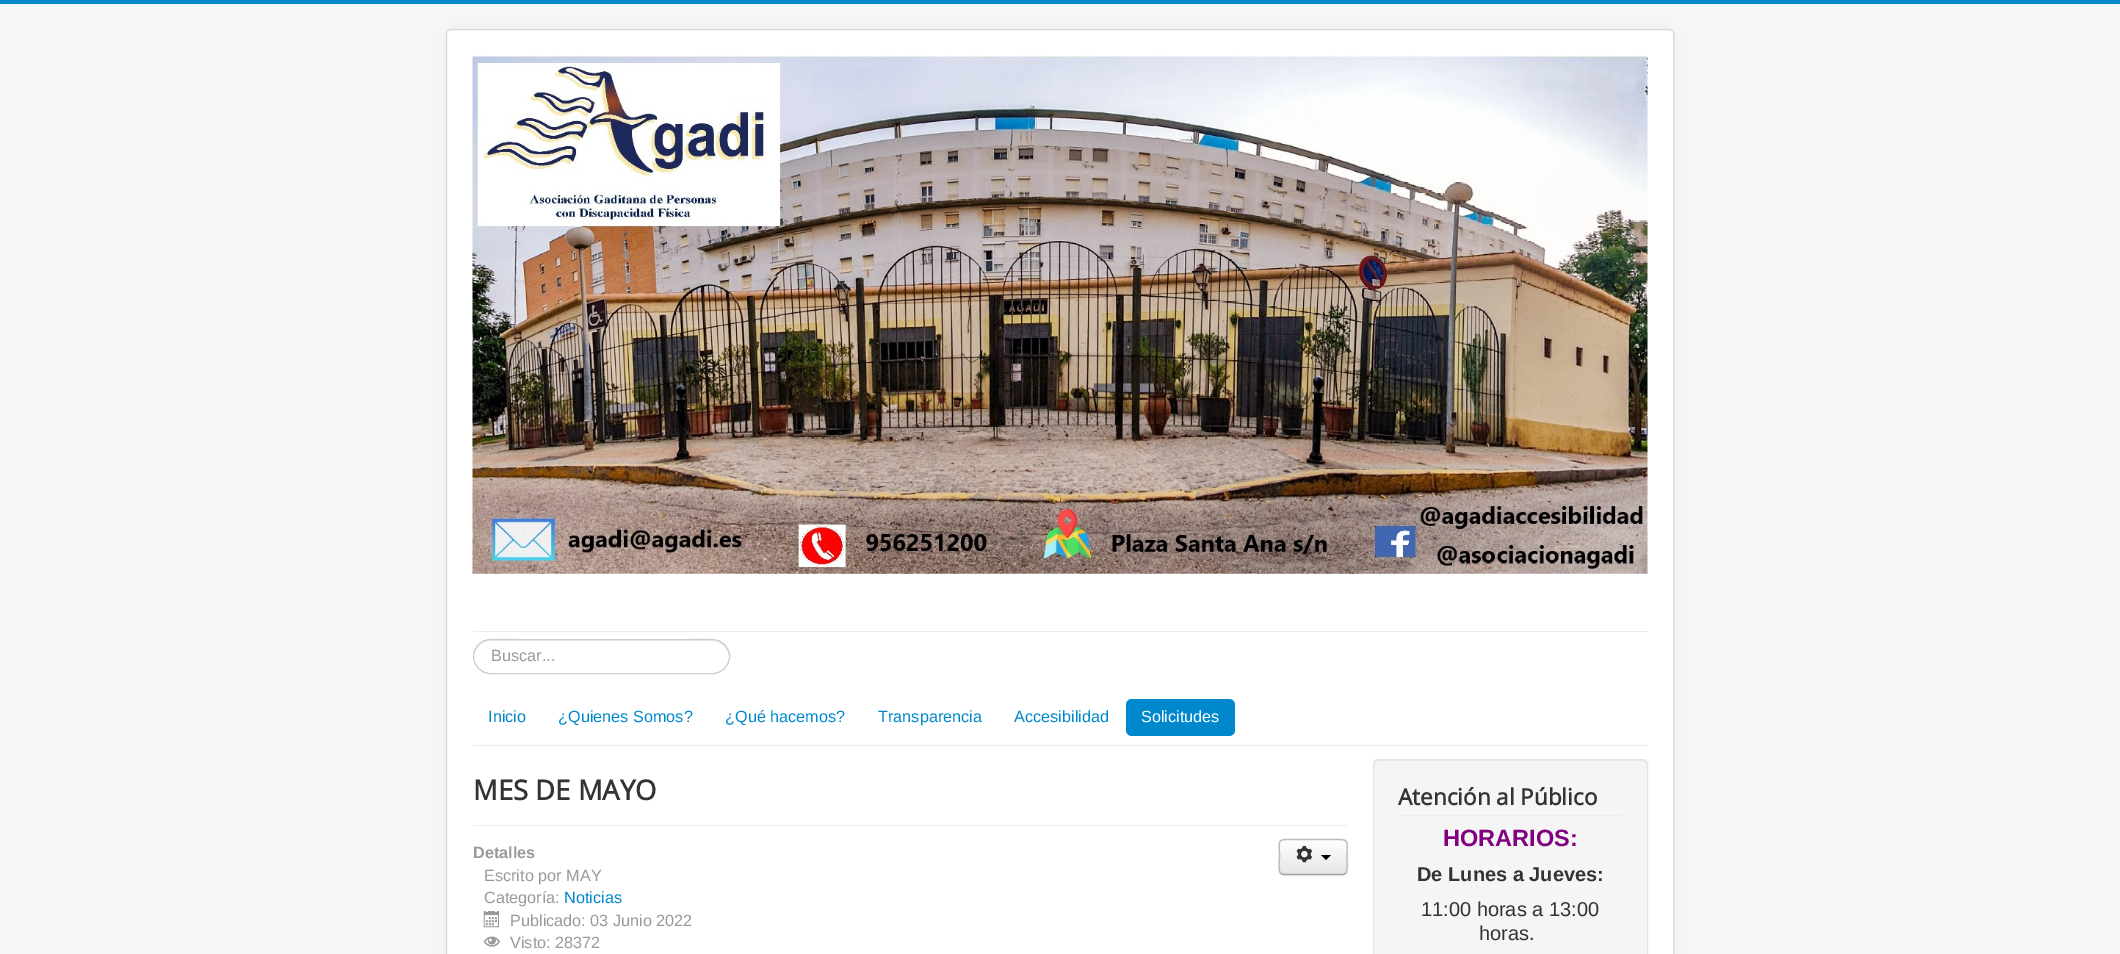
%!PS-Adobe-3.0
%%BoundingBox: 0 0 2120 954
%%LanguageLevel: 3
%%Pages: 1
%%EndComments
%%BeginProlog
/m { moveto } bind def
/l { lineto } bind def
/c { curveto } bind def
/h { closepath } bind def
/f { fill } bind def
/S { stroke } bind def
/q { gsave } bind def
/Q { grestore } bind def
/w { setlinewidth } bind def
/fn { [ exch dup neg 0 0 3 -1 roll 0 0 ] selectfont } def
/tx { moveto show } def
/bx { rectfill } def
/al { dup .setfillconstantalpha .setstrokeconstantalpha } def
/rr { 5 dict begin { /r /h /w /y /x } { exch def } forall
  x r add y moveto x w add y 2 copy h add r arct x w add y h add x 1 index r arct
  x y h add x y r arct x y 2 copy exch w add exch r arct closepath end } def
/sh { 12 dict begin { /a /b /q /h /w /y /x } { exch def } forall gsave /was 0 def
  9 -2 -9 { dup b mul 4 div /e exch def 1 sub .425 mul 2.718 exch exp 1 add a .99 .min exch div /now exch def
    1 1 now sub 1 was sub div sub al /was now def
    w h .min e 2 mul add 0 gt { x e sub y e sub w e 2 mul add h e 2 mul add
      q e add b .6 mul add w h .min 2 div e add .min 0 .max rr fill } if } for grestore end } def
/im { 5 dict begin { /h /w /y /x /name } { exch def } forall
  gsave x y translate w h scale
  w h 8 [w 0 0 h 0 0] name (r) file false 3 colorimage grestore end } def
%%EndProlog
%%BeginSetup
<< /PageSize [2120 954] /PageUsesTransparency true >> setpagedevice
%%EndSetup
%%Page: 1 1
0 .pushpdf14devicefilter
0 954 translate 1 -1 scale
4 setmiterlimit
0.957 0.965 0.969 setrgbcolor
0 0 2120 954 bx
0 0.533 0.8 setrgbcolor
0 0 2120 4 bx
0 setgray
446 29 1228 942 5 4 0.05 sh
1 setgray
446 29 1228 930 5 rr f
0.15 al
0 setgray
446.5 29.5 1227 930 4.5 rr S
1 al
(image0.raw) 472 55 1176 519 im
0.925 setgray
473 631 1175 1 bx
473 745 1175 1 bx
490 641 m 712 641 l 721 641 729 649 729 657 c 730 631 686 640 676 640 c 528 640 l 517 640 473 631 474 657 c 474 649 481 641 490 641 c h f
0.8 setgray
473.5 639.5 256 34 17 rr S
/LiberationSans-Regular 16.25 fn
0.6 setgray
(Buscar...) 491 661 tx
0 0.533 0.8 setrgbcolor
(Inicio) 488 722 tx
(¿Quienes Somos?) 558 722 tx
(¿Qué hacemos?) 725 722 tx
(Transparencia) 878 722 tx
(Accesibilidad) 1014 722 tx
1126 699 109 37 6 rr f
1 setgray
(Solicitudes) 1141 722 tx
0.933 setgray
473 825 875 1 bx
/OpenSans-Bold 27.5 fn
0.2 setgray
(MES DE MAYO) 473 800 tx
/LiberationSans-Bold 16.25 fn
0.6 setgray
(Detalles) 473 858 tx
/LiberationSans-Regular 16.25 fn
(Escrito por MAY) 484 881 tx
(Categoría:) 484 903 tx
0 0.533 0.8 setrgbcolor
(Noticias) 564 903 tx
(image1.raw) 483 911 16 17 im
0.6 setgray
(Publicado: 03 Junio 2022) 510 926 tx
(image2.raw) 483 936 17 11 im
(Visto: 28372) 510 948 tx
0 setgray
1279 840 69 36 5 1 0.05 sh
0.961 setgray
1279 839 69 36 5 rr f
q
1279 839 69 36 5 rr clip newpath
q 1279 840 m 1348 840 l 1348 874 l 1279 874 l h clip newpath
<< /ShadingType 2 /ColorSpace /DeviceRGB /Coords [1313 840 1313 874] /Extend [true true] /Function << /FunctionType 2 /Domain [0 1] /C0 [1 1 1] /C1 [0.902 0.902 0.902] /N 1 >> >> shfill Q
Q
1 setgray
1284 841 m 1342 841 l 1345 841 1346 843 1346 845 c 1346 838 1337 840 1332 840 c 1294 840 l 1289 840 1280 838 1280 845 c 1280 843 1282 841 1284 841 c h f
0.635 setgray
1.2 w
1345.5 873 m 1345 874 1343.5 874.5 1342.5 874.5 c 1284 874.5 l 1282.5 874.5 1281.5 874 1280.5 873 c S
0.733 setgray
1280.5 873 m 1278 870.5 1279.5 860 1279.5 857 c 1279.5 839 1276 839.5 1293.5 839.5 c 1332.5 839.5 l 1350 839.5 1347 839 1347 857 c 1347 860 1348 870.5 1345.5 873 c S
(image3.raw) 1296 846 17 17 im
0 setgray
1321 855 m 1331 855 l 1326 860 l h f
0.961 setgray
1373 759 275 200 5 rr f
0.914 setgray
1378 761 m 1642 761 l 1645 761 1646 763 1646 765 c 1646 762 1645 760 1642 760 c 1378 760 l 1375 760 1374 762 1374 765 c 1374 763 1375 761 1378 761 c h f
0.89 setgray
1 w
1373.5 759.5 274 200 4.5 rr S
0.933 setgray
1398 815 225 1 bx
/OpenSans-Bold 22.5 fn
0.2 setgray
(Atención al Público) 1398 805 tx
/LiberationSans-Bold 23.5 fn
0.502 0 0.502 setrgbcolor
(HORARIOS:) 1443 846 tx
/LiberationSans-Bold 20 fn
0.2 setgray
(De Lunes a Jueves:) 1417 881 tx
/LiberationSans-Regular 20 fn
(11:00 horas a 13:00) 1421 916 tx
(horas.) 1479 940 tx
.poppdf14devicefilter showpage
%%EOF
